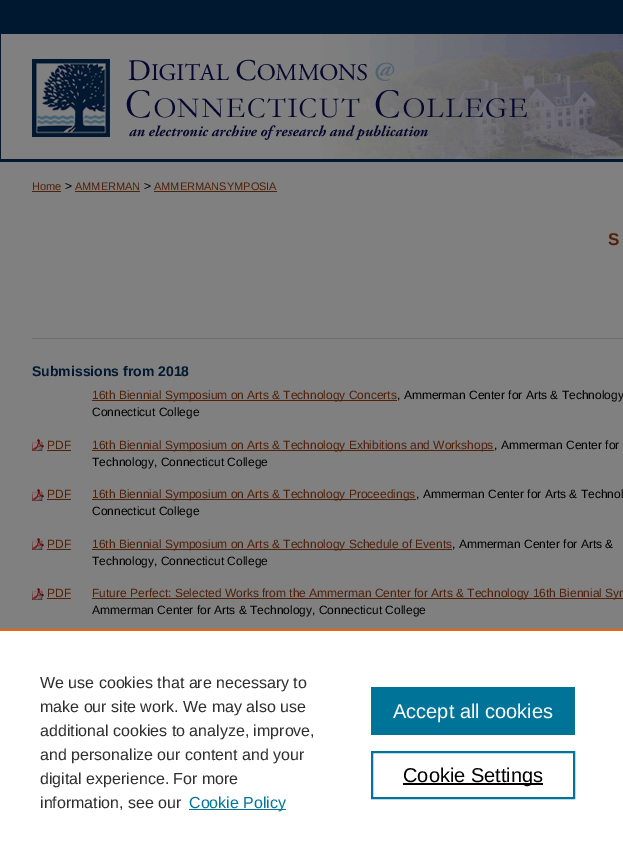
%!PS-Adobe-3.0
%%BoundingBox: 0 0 623 855
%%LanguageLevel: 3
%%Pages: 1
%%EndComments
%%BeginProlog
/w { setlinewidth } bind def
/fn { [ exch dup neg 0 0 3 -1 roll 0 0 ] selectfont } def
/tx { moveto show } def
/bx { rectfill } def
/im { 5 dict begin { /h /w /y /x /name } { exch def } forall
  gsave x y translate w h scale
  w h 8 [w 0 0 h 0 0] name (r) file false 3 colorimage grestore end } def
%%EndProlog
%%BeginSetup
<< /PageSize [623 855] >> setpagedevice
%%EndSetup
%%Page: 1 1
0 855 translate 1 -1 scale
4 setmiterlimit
0 0.094 0.188 setrgbcolor
0 0 623 855 bx
(image0.raw) 0 34 623 128 im
0.502 setgray
0 162 623 467 bx
/LiberationSans-Regular 11 fn
0.314 0.129 0.027 setrgbcolor
(Home) 32 190 tx
32 191 29 1 bx
/LiberationSans-Regular 12 fn
0 setgray
(>) 65 190 tx
/LiberationSans-Regular 11 fn
0.314 0.129 0.027 setrgbcolor
(AMMERMAN) 75 190 tx
75 191 65 1 bx
/LiberationSans-Regular 12 fn
0 setgray
(>) 144 190 tx
/LiberationSans-Regular 11 fn
0.314 0.129 0.027 setrgbcolor
(AMMERMANSYMPOSIA) 154 190 tx
154 191 123 1 bx
/LiberationSans-Bold 17 fn
(S) 608 245 tx
0.435 setgray
32 338 591 1 bx
/LiberationSans-Bold 14 fn
0 0.094 0.188 setrgbcolor
(Submissions from 2018) 32 376 tx
0.314 0.129 0.027 setrgbcolor
92 400 305 1 bx
/LiberationSans-Regular 12 fn
(16th Biennial Symposium on Arts & Technology Concerts) 92 399 tx
0 setgray
(, Ammerman Center for Arts & Technology) 397 399 tx
(Connecticut College) 92 416 tx
(image1.raw) 32 439 12 12 im
0.314 0.129 0.027 setrgbcolor
(PDF) 47 449 tx
47 450 24 1 bx
92 450 402 1 bx
(16th Biennial Symposium on Arts & Technology Exhibitions and Workshops) 92 449 tx
0 setgray
(, Ammerman Center for) 494 449 tx
(Technology, Connecticut College) 92 466 tx
(image1.raw) 32 489 12 12 im
0.314 0.129 0.027 setrgbcolor
(PDF) 47 498 tx
47 499 24 1 bx
92 499 324 1 bx
(16th Biennial Symposium on Arts & Technology Proceedings) 92 498 tx
0 setgray
(, Ammerman Center for Arts & Technol) 416 498 tx
(Connecticut College) 92 515 tx
(image1.raw) 32 538 12 12 im
0.314 0.129 0.027 setrgbcolor
(PDF) 47 548 tx
47 549 24 1 bx
92 549 360 1 bx
(16th Biennial Symposium on Arts & Technology Schedule of Events) 92 548 tx
0 setgray
(, Ammerman Center for Arts &) 452 548 tx
(Technology, Connecticut College) 92 565 tx
(image1.raw) 32 588 12 12 im
0.314 0.129 0.027 setrgbcolor
(PDF) 47 597 tx
47 598 24 1 bx
92 598 531 1 bx
(Future Perfect: Selected Works from the Ammerman Center for Arts & Technology 16th Biennial Sym) 92 597 tx
0 setgray
(Ammerman Center for Arts & Technology, Connecticut College) 92 614 tx
1 setgray
0 631 623 224 bx
0.922 0.396 0 setrgbcolor
0 629 623 2 bx
/LiberationSans-Regular 16 fn
0.18 setgray
(We use cookies that are necessary to) 40 688 tx
(make our site work. We may also use) 40 712 tx
(additional cookies to analyze, improve,) 40 736 tx
(and personalize our content and your) 40 760 tx
(digital experience. For more) 40 784 tx
(information, see our) 40 808 tx
0 0.451 0.596 setrgbcolor
189 809 97 1 bx
(Cookie Policy) 189 808 tx
371 687 204 48 bx
/LiberationSans-Regular 20 fn
1 setgray
(Accept all cookies) 393 718 tx
0 0.451 0.596 setrgbcolor
2 w
372 752 202 46 rectstroke
0 setgray
403 783 140 2 bx
(Cookie Settings) 403 782 tx
showpage
%%EOF
